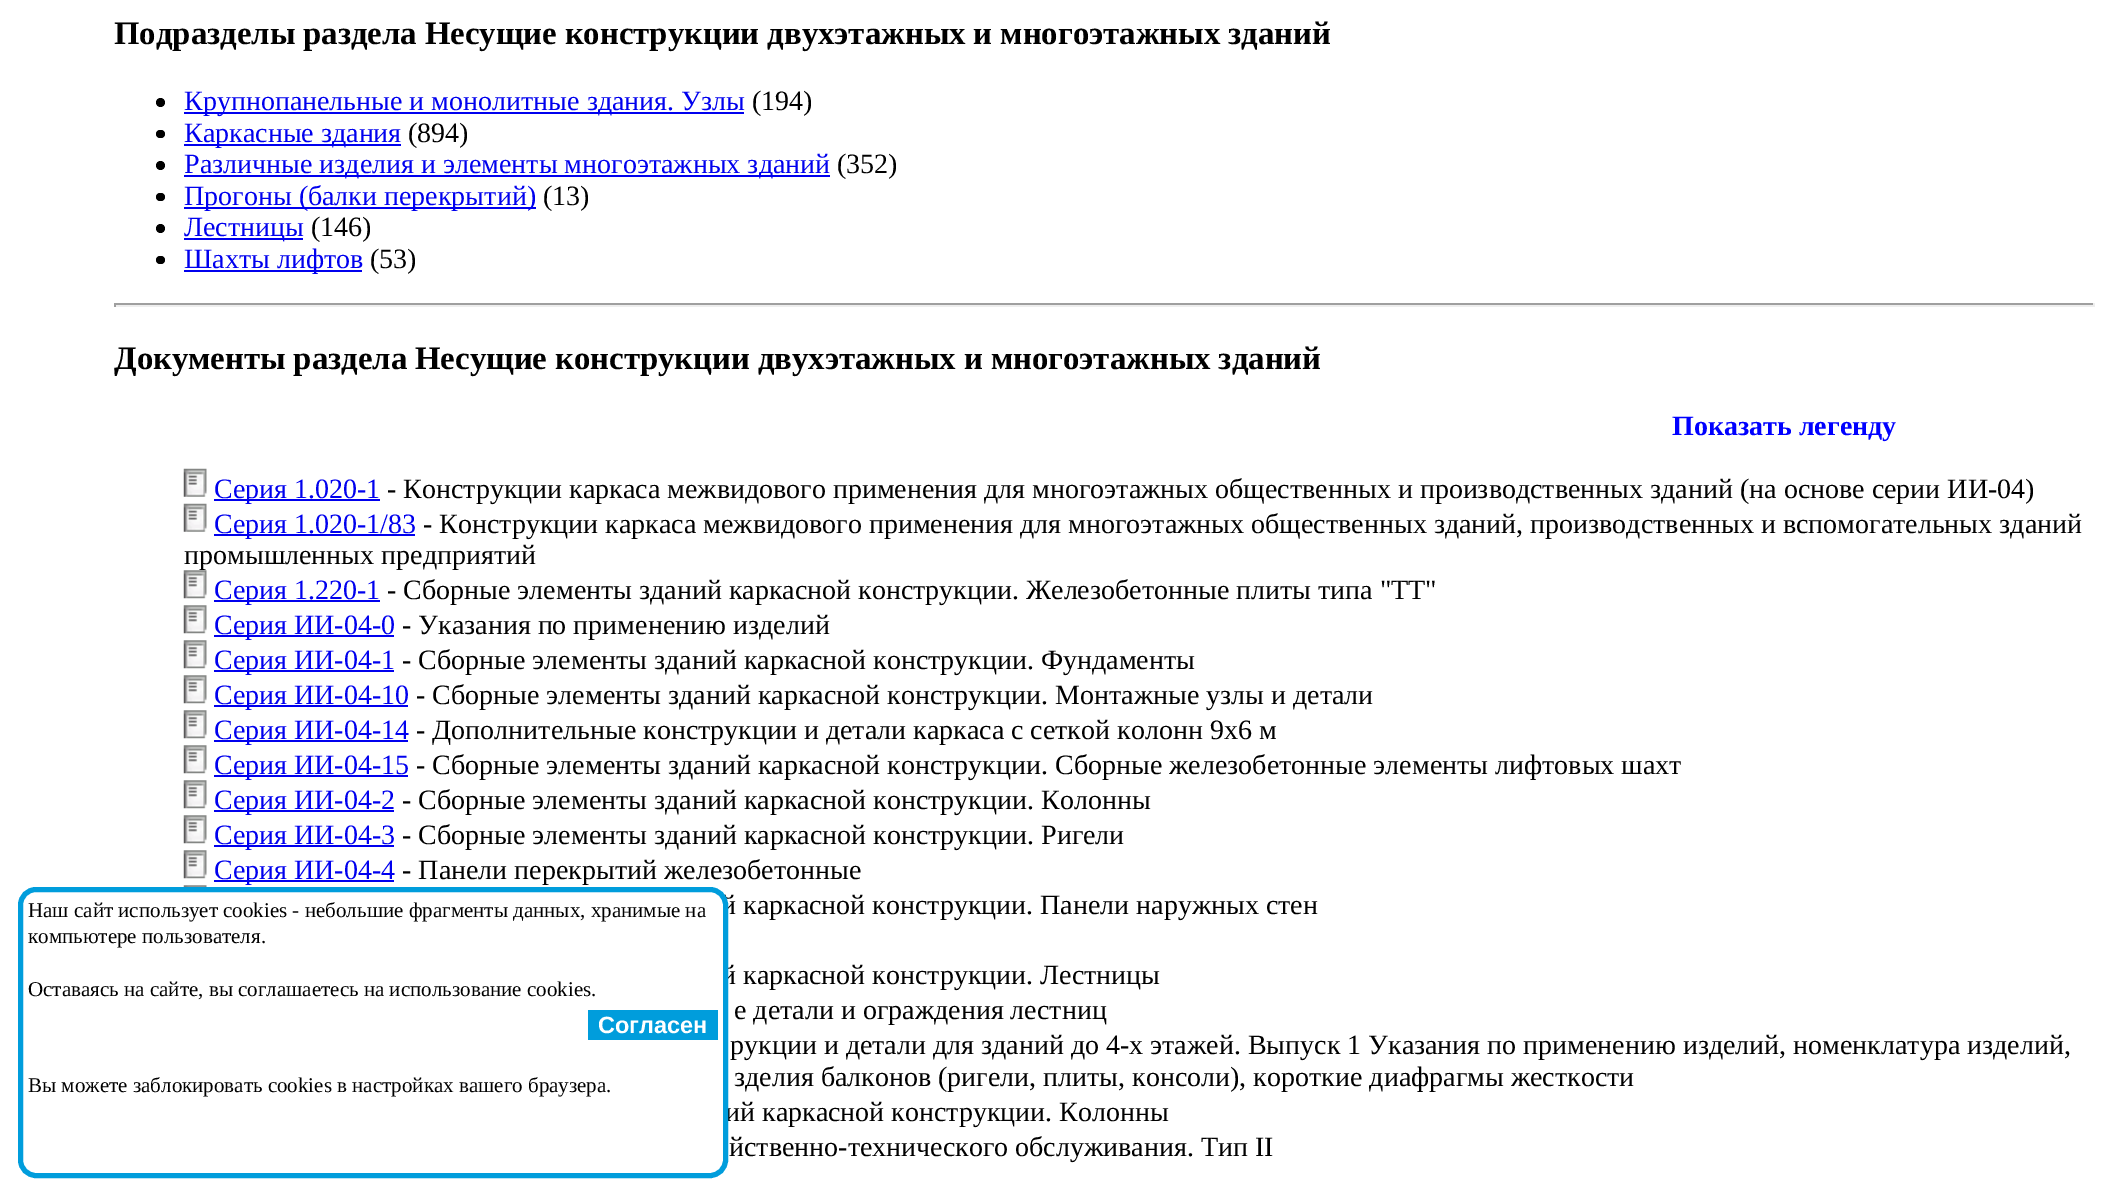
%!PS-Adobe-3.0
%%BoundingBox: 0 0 2113 1202
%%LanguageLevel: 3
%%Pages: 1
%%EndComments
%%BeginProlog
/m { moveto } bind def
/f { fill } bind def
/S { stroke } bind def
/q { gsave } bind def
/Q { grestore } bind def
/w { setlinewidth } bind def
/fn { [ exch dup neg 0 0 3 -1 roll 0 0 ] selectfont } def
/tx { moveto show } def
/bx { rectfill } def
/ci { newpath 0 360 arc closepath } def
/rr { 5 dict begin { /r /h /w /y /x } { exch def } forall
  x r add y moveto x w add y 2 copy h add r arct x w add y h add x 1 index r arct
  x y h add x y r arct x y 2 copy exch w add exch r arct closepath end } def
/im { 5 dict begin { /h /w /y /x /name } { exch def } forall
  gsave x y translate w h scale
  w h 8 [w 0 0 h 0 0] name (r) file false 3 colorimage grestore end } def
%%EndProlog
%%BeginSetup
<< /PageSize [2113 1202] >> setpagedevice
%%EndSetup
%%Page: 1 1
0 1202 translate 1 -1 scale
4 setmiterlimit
1 setgray
0 0 2113 1202 bx
/LiberationSerif-Bold 32.75 fn
0 setgray
114 44 m -0.25 0 32 (Подразделы раздела Несущие конструкции двухэтажных и многоэтажных зданий) widthshow
160.5 102.5 4.5 ci f
0 0 0.933 setrgbcolor
184 112 560 2 bx
/LiberationSerif-Regular 28 fn
(Крупнопанельные и монолитные здания. Узлы) 184 110 tx
0 setgray
(\(194\)) 752 110 tx
156 130 9 8 4 rr f
0 0 0.933 setrgbcolor
184 144 217 2 bx
(Каркасные здания) 184 142 tx
0 setgray
(\(894\)) 408 142 tx
160.5 165.5 4.5 ci f
0 0 0.933 setrgbcolor
184 175 646 2 bx
(Различные изделия и элементы многоэтажных зданий) 184 173 tx
0 setgray
(\(352\)) 837 173 tx
156 193 9 8 4 rr f
0 0 0.933 setrgbcolor
184 207 352 2 bx
(Прогоны \(балки перекрытий\)) 184 205 tx
0 setgray
(\(13\)) 543 205 tx
160.5 228.5 4.5 ci f
0 0 0.933 setrgbcolor
184 238 119 2 bx
(Лестницы) 184 236 tx
0 setgray
(\(146\)) 311 236 tx
156 256 9 8 4 rr f
0 0 0.933 setrgbcolor
184 270 178 2 bx
(Шахты лифтов) 184 268 tx
0 setgray
(\(53\)) 370 268 tx
0.624 setgray
114 303 1981 2 bx
0.933 setgray
2093 303 2 4 bx
114 305 1981 2 bx
0.624 setgray
114 303 2 4 bx
/LiberationSerif-Bold 32.75 fn
0 setgray
114 369 m -0.25 0 32 (Документы раздела Несущие конструкции двухэтажных и многоэтажных зданий) widthshow
/LiberationSerif-Bold 28 fn
0 0 1 setrgbcolor
(Показать легенду) 1672 435 tx
(image0.raw) 183 468 24 29 im
0 0 0.933 setrgbcolor
214 499 166 2 bx
/LiberationSerif-Regular 28 fn
(Серия 1.020-1) 214 498 tx
0 setgray
(- Конструкции каркаса межвидового применения для многоэтажных общественных и производственных зданий \(на основе серии ИИ-04\)) 387 498 tx
(image0.raw) 183 503 24 29 im
0 0 0.933 setrgbcolor
214 534 201 2 bx
(Серия 1.020-1/83) 214 533 tx
0 setgray
(- Конструкции каркаса межвидового применения для многоэтажных общественных зданий, производственных и вспомогательных зданий) 423 533 tx
(промышленных предприятий) 184 564 tx
(image1.raw) 183 570 24 29 im
0 0 0.933 setrgbcolor
214 600 166 2 bx
(Серия 1.220-1) 214 599 tx
0 setgray
(- Сборные элементы зданий каркасной конструкции. Железобетонные плиты типа "ТТ") 387 599 tx
(image1.raw) 183 605 24 29 im
0 0 0.933 setrgbcolor
214 635 180 2 bx
(Серия ИИ-04-0) 214 634 tx
0 setgray
(- Указания по применению изделий) 402 634 tx
(image1.raw) 183 640 24 29 im
0 0 0.933 setrgbcolor
214 670 180 2 bx
(Серия ИИ-04-1) 214 669 tx
0 setgray
(- Сборные элементы зданий каркасной конструкции. Фундаменты) 402 669 tx
(image1.raw) 183 675 24 29 im
0 0 0.933 setrgbcolor
214 705 194 2 bx
(Серия ИИ-04-10) 214 704 tx
0 setgray
(- Сборные элементы зданий каркасной конструкции. Монтажные узлы и детали) 416 704 tx
(image1.raw) 183 710 24 29 im
0 0 0.933 setrgbcolor
214 740 194 2 bx
(Серия ИИ-04-14) 214 739 tx
0 setgray
(- Дополнительные конструкции и детали каркаса с сеткой колонн 9х6 м) 416 739 tx
(image1.raw) 183 745 24 29 im
0 0 0.933 setrgbcolor
214 775 194 2 bx
(Серия ИИ-04-15) 214 774 tx
0 setgray
(- Сборные элементы зданий каркасной конструкции. Сборные железобетонные элементы лифтовых шахт) 416 774 tx
(image1.raw) 183 780 24 29 im
0 0 0.933 setrgbcolor
214 810 180 2 bx
(Серия ИИ-04-2) 214 809 tx
0 setgray
(- Сборные элементы зданий каркасной конструкции. Колонны) 402 809 tx
(image1.raw) 183 815 24 29 im
0 0 0.933 setrgbcolor
214 845 180 2 bx
(Серия ИИ-04-3) 214 844 tx
0 setgray
(- Сборные элементы зданий каркасной конструкции. Ригели) 402 844 tx
(image1.raw) 183 850 24 29 im
0 0 0.933 setrgbcolor
214 880 180 2 bx
(Серия ИИ-04-4) 214 879 tx
0 setgray
(- Панели перекрытий железобетонные) 402 879 tx
(image2.raw) 183 885 24 2 im
(й каркасной конструкции. Панели наружных стен) 721 914 tx
(й каркасной конструкции. Лестницы) 721 984 tx
(е детали и ограждения лестниц) 734 1019 tx
(рукции и детали для зданий до 4-х этажей. Выпуск 1 Указания по применению изделий, номенклатура изделий,) 730 1054 tx
(зделия балконов \(ригели, плиты, консоли\), короткие диафрагмы жесткости) 734 1086 tx
(ий каркасной конструкции. Колонны) 725 1121 tx
(йственно-технического обслуживания. Тип II) 729 1156 tx
1 setgray
20.5 889.5 705 286 15.5 rr q f Q
0 0.616 0.863 setrgbcolor
5 w
S
/LiberationSerif-Regular 21 fn
0 setgray
(Наш сайт использует cookies - небольшие фрагменты данных, хранимые на) 28 917 tx
(компьютере пользователя.) 28 943 tx
(Оставаясь на сайте, вы соглашаетесь на использование cookies.) 28 996 tx
0 0.616 0.863 setrgbcolor
588 1010 130 30 bx
/LiberationSans-Bold 23.5 fn
1 setgray
(Согласен) 598 1033 tx
/LiberationSerif-Regular 21 fn
0 setgray
(Вы можете заблокировать cookies в настройках вашего браузера.) 28 1092 tx
showpage
%%EOF
